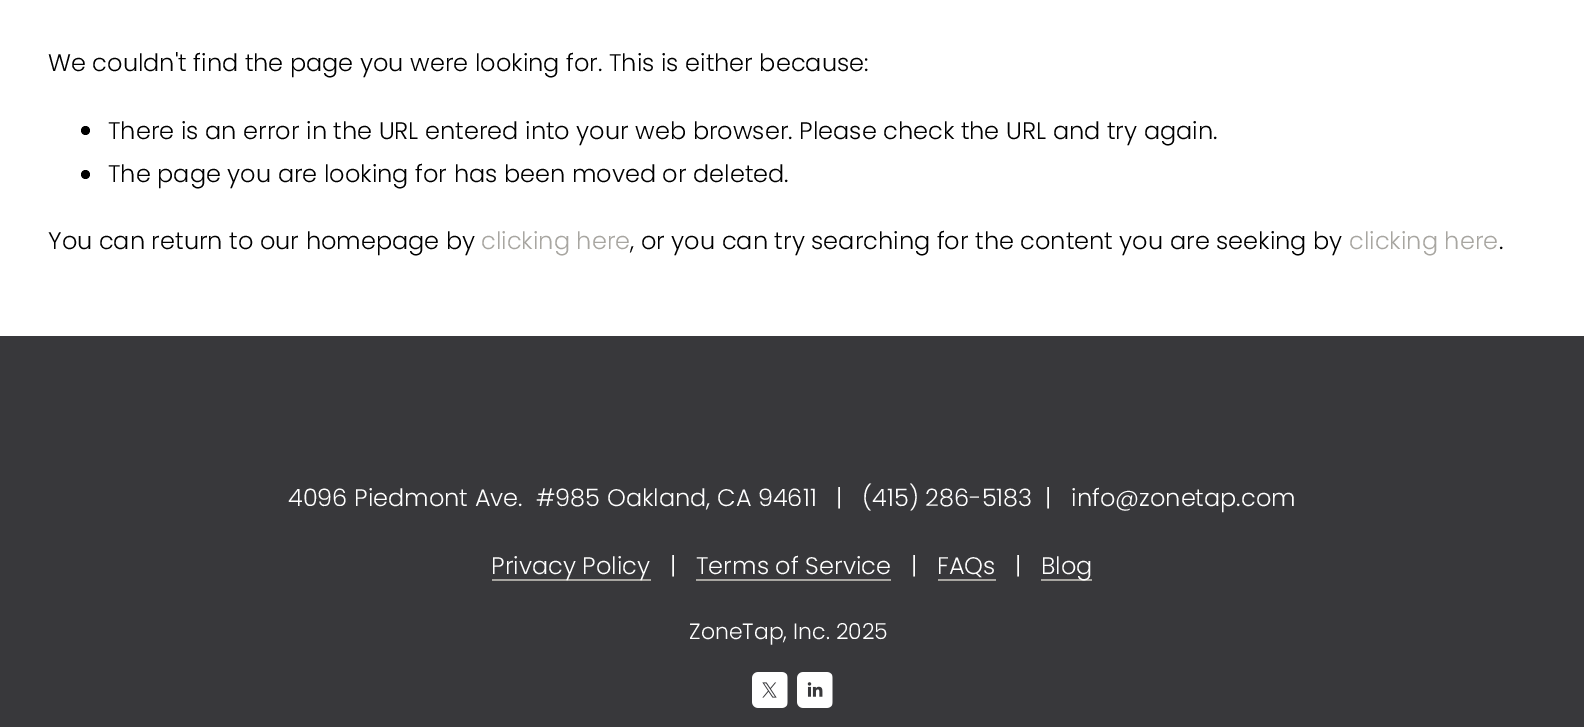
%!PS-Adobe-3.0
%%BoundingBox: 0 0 1584 727
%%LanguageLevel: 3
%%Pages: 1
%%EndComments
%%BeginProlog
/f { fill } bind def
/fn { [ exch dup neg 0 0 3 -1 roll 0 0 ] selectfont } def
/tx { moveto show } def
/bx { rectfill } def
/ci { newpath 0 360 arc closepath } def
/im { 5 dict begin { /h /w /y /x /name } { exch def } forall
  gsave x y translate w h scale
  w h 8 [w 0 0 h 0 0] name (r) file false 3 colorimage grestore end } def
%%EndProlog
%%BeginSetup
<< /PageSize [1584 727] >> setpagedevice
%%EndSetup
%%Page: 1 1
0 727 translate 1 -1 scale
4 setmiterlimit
1 setgray
0 0 1584 727 bx
/Poppins-Light 24 fn
0 setgray
(We couldn't find the page you were looking for. This is either because:) 48 71 tx
85.5 130.5 4.5 ci f
(There is an error in the URL entered into your web browser. Please check the URL and try again.) 108 139 tx
85.5 174.5 4.5 ci f
(The page you are looking for has been moved or deleted.) 108 182 tx
(You can return to our homepage by) 48 249 tx
0.659 0.651 0.631 setrgbcolor
(clicking here) 481 249 tx
0 setgray
(, or you can try searching for the content you are seeking by) 630 249 tx
0.659 0.651 0.631 setrgbcolor
(clicking here) 1349 249 tx
0 setgray
(.) 1499 249 tx
0.22 0.22 0.231 setrgbcolor
0 336 1584 391 bx
1 setgray
(4096 Piedmont Ave.  #985 Oakland, CA 94611   |) 288 506 tx
(\(415\) 286-5183  |   info@zonetap.com) 862 506 tx
0.659 0.651 0.631 setrgbcolor
492 579 159 2 bx
1 setgray
(Privacy Policy) 491 574 tx
(|) 670 574 tx
(Terms of Service) 696 574 tx
0.659 0.651 0.631 setrgbcolor
696 579 195 2 bx
1 setgray
(|) 911 574 tx
(FAQs) 937 574 tx
0.659 0.651 0.631 setrgbcolor
938 579 58 2 bx
1 setgray
(|) 1015 574 tx
0.659 0.651 0.631 setrgbcolor
1041 579 51 2 bx
1 setgray
(Blog) 1041 574 tx
/Poppins-Light 22 fn
(ZoneTap, Inc. 2025) 689 639 tx
(image0.raw) 752 672 36 36 im
(image1.raw) 797 672 36 36 im
showpage
%%EOF
